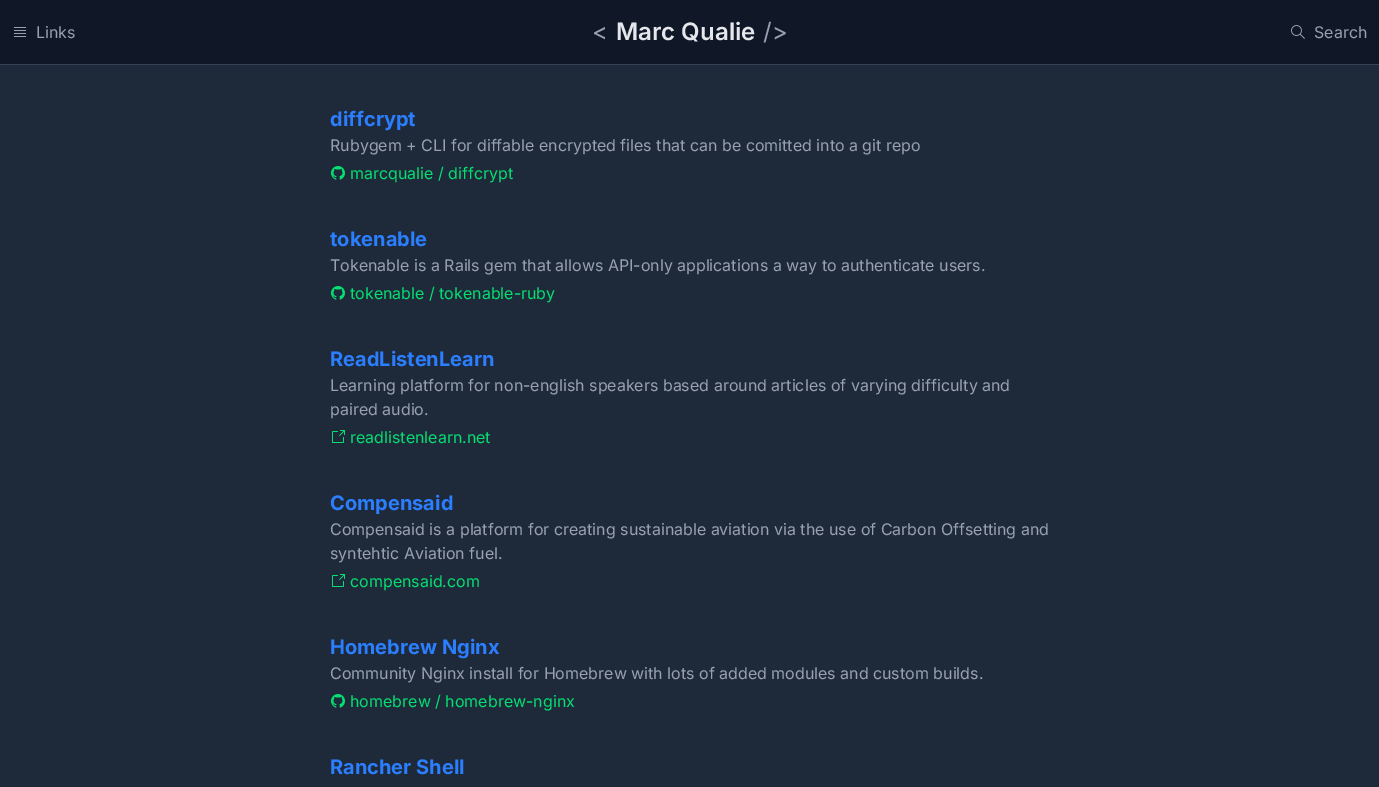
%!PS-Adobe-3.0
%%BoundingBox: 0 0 1379 787
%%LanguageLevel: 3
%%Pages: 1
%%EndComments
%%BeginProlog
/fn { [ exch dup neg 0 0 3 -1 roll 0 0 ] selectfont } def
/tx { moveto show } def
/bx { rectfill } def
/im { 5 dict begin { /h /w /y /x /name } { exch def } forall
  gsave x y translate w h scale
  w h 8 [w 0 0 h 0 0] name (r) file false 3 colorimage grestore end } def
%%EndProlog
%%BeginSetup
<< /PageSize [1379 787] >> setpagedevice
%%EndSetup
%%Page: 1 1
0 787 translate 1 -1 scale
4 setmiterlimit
0.118 0.161 0.224 setrgbcolor
0 0 1379 787 bx
0.063 0.094 0.157 setrgbcolor
0 0 1379 64 bx
0.212 0.255 0.325 setrgbcolor
0 64 1379 1 bx
(image0.raw) 14 27 12 10 im
/Inter-Regular 16 fn
0.6 0.631 0.686 setrgbcolor
(Links) 36 38 tx
/Inter-Regular 24 fn
(<) 592 40 tx
/Inter-SemiBold 24 fn
0.898 0.906 0.922 setrgbcolor
(Marc Qualie) 616 40 tx
/Inter-Regular 24 fn
0.6 0.631 0.686 setrgbcolor
(/>) 763 40 tx
(image1.raw) 1291 25 14 14 im
/Inter-Regular 16 fn
(Search) 1314 38 tx
/Inter-Bold 20 fn
0.169 0.498 1 setrgbcolor
(diffcrypt) 330 126 tx
/Inter-Regular 16 fn
0.6 0.631 0.686 setrgbcolor
(Rubygem + CLI for diffable encrypted files that can be comitted into a git repo) 330 151 tx
(image2.raw) 331 166 14 14 im
0.02 0.875 0.447 setrgbcolor
(marcqualie / diffcrypt) 350 179 tx
/Inter-Bold 20 fn
0.169 0.498 1 setrgbcolor
(tokenable) 330 246 tx
/Inter-Regular 16 fn
0.6 0.631 0.686 setrgbcolor
(Tokenable is a Rails gem that allows API-only applications a way to authenticate users.) 330 271 tx
(image2.raw) 331 286 14 14 im
0.02 0.875 0.447 setrgbcolor
(tokenable / tokenable-ruby) 350 299 tx
/Inter-Bold 20 fn
0.169 0.498 1 setrgbcolor
(ReadListenLearn) 330 366 tx
/Inter-Regular 16 fn
0.6 0.631 0.686 setrgbcolor
(Learning platform for non-english speakers based around articles of varying difficulty and) 330 391 tx
(paired audio.) 330 415 tx
(image3.raw) 332 430 13 13 im
0.02 0.875 0.447 setrgbcolor
(readlistenlearn.net) 350 443 tx
/Inter-Bold 20 fn
0.169 0.498 1 setrgbcolor
(Compensaid) 330 510 tx
/Inter-Regular 16 fn
0.6 0.631 0.686 setrgbcolor
(Compensaid is a platform for creating sustainable aviation via the use of Carbon Offsetting and) 330 535 tx
(syntehtic Aviation fuel.) 330 559 tx
(image3.raw) 332 574 13 13 im
0.02 0.875 0.447 setrgbcolor
(compensaid.com) 350 587 tx
/Inter-Bold 20 fn
0.169 0.498 1 setrgbcolor
(Homebrew Nginx) 330 654 tx
/Inter-Regular 16 fn
0.6 0.631 0.686 setrgbcolor
(Community Nginx install for Homebrew with lots of added modules and custom builds.) 330 679 tx
(image2.raw) 331 694 14 14 im
0.02 0.875 0.447 setrgbcolor
(homebrew / homebrew-nginx) 350 707 tx
/Inter-Bold 20 fn
0.169 0.498 1 setrgbcolor
(Rancher Shell) 330 774 tx
showpage
%%EOF
